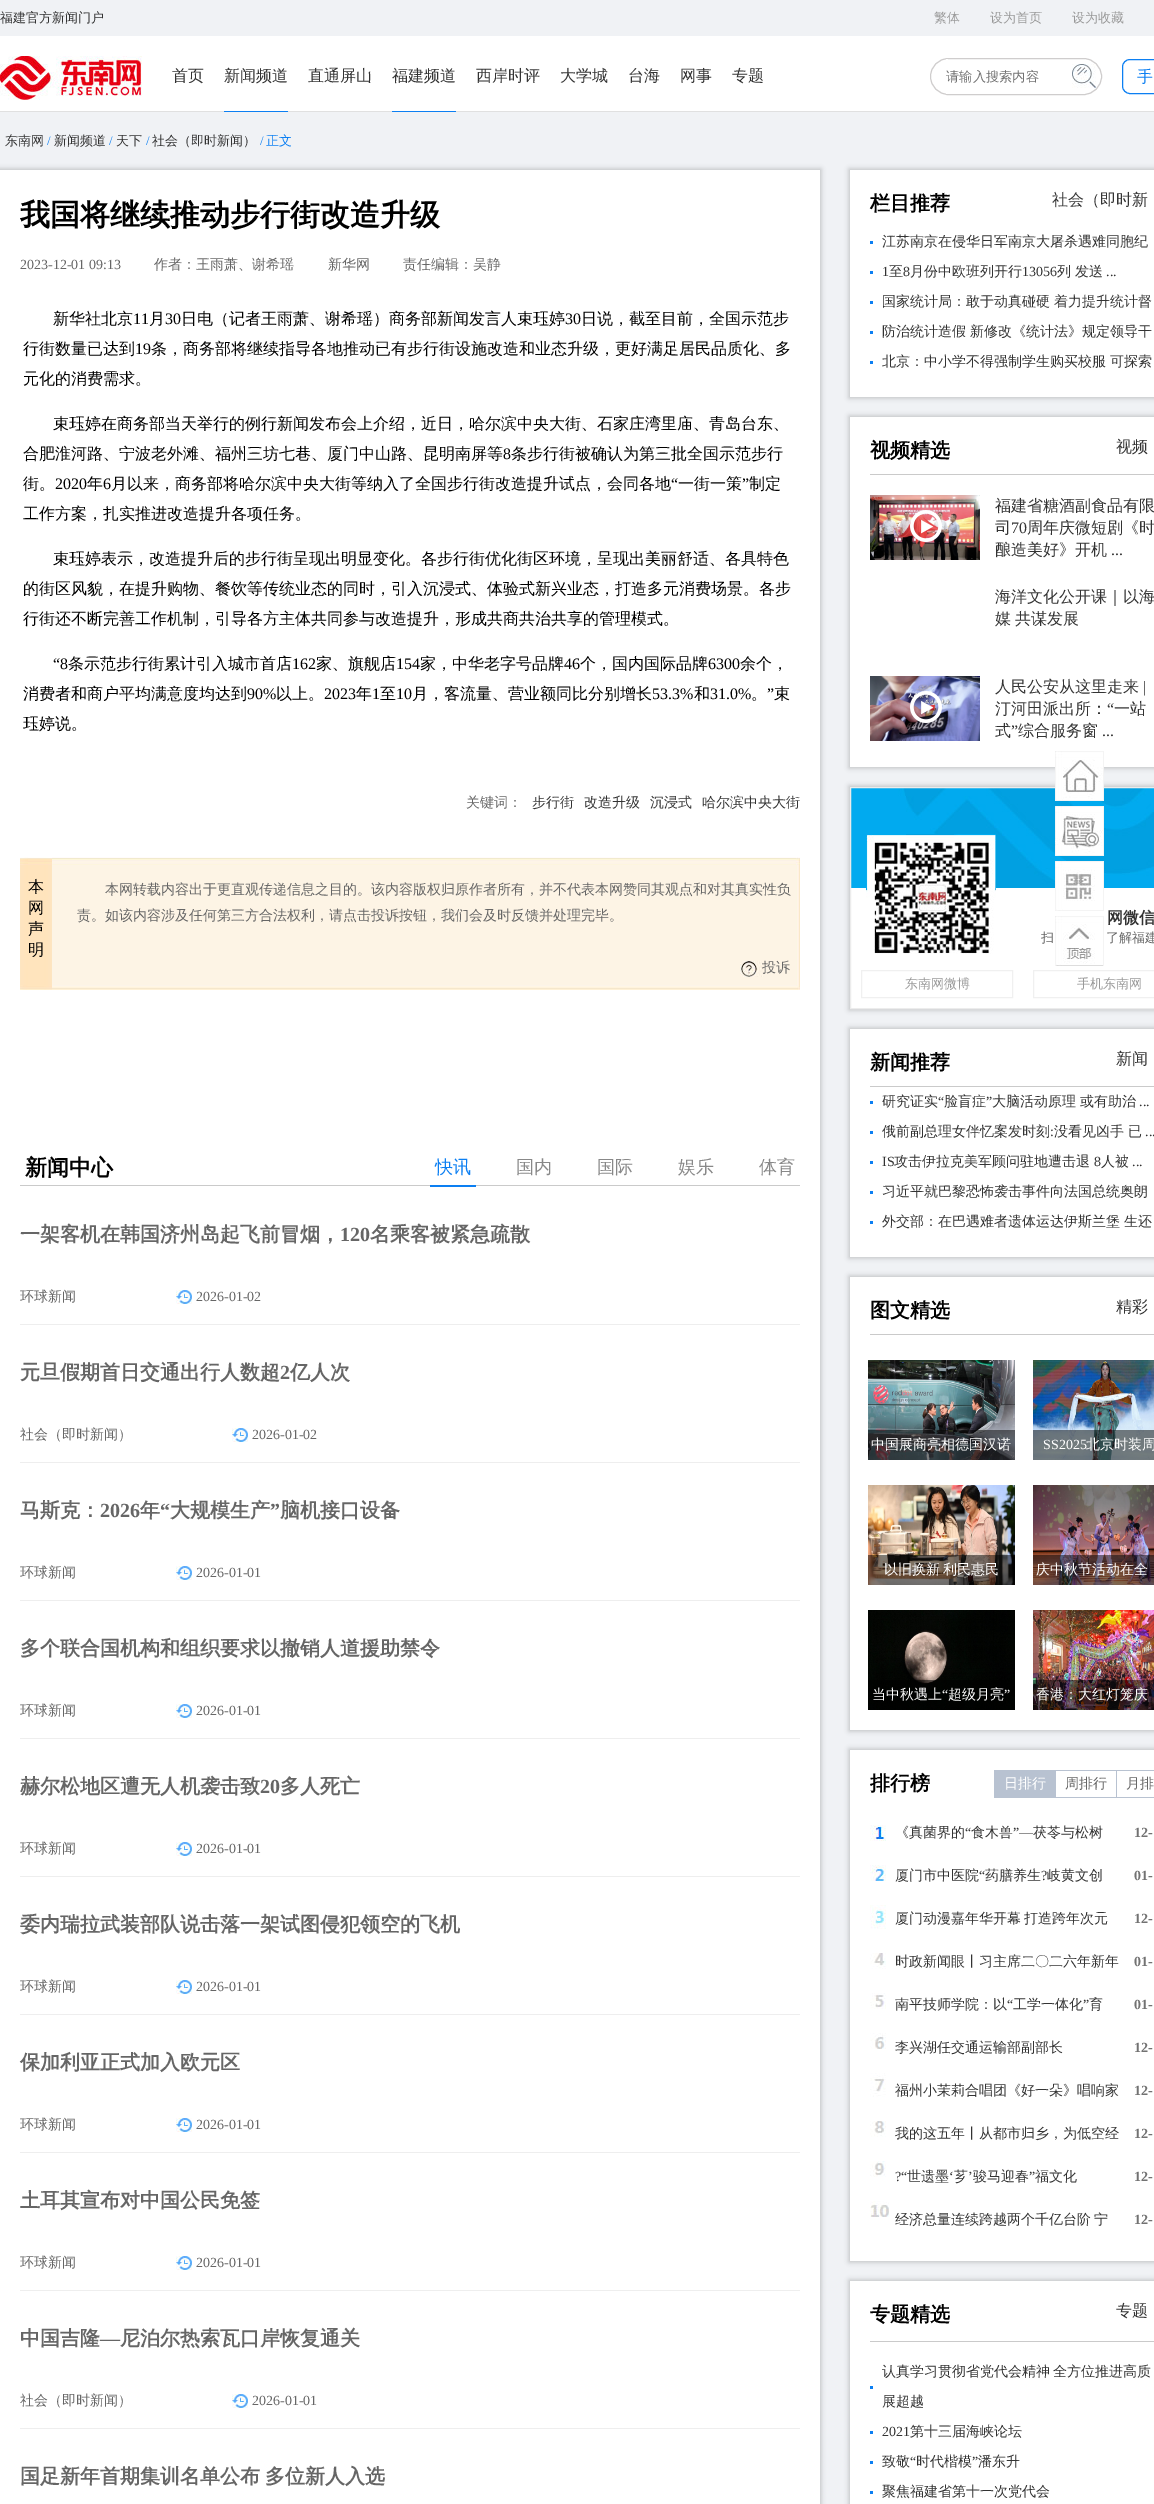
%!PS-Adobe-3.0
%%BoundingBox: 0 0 1154 2504
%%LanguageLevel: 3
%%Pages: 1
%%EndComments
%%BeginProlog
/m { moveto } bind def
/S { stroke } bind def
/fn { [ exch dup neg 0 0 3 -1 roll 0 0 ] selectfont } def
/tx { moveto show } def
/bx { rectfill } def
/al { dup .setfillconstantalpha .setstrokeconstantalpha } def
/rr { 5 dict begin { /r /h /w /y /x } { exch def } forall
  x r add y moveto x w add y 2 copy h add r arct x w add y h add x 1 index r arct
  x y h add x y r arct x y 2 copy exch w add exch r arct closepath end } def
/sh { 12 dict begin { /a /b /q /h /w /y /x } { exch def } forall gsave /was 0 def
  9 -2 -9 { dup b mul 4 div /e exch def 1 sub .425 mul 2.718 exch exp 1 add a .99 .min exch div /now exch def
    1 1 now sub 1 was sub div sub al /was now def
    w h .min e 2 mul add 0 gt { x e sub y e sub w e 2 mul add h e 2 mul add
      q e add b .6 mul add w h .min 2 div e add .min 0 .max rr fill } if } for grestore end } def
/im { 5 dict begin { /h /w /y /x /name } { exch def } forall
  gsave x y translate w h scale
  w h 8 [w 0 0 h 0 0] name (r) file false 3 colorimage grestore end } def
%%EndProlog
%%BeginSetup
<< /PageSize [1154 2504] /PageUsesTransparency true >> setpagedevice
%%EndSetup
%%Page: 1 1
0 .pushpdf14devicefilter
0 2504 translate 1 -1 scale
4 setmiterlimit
0.941 0.949 0.961 setrgbcolor
0 0 1154 2504 bx
/WenQuanYiZenHei-Medium 13 fn
0.2 setgray
(福建官方新闻门户) 0 22 tx
0.6 setgray
(繁体) 934 22 tx
(设为首页) 990 22 tx
(设为收藏) 1072 22 tx
1 setgray
0 36 1154 75 bx
0.878 setgray
0 111 1154 1 bx
(image0.raw) 0 56 142 44 im
/WenQuanYiZenHei-Medium 16 fn
0.2 setgray
(首页) 172 81 tx
0.047 0.498 0.949 setrgbcolor
224 111 64 1 bx
0.2 setgray
(新闻频道) 224 81 tx
(直通屏山) 308 81 tx
0.047 0.498 0.949 setrgbcolor
392 111 64 1 bx
0.2 setgray
(福建频道) 392 81 tx
(西岸时评) 476 81 tx
(大学城) 560 81 tx
(台海) 628 81 tx
(网事) 680 81 tx
(专题) 732 81 tx
0.812 0.804 0.804 setrgbcolor
930.5 58.5 171 36 18 rr S
1 setgray
946 59 2 35 bx
/WenQuanYiZenHei-Medium 13.25 fn
0.447 setgray
(请输入搜索内容) 946 81 tx
(image1.raw) 1072 64 24 24 im
0.047 0.498 0.949 setrgbcolor
1122.5 59.5 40 34 7.5 rr S
/WenQuanYiZenHei-Medium 16 fn
(手) 1137 82 tx
/WenQuanYiZenHei-Medium 13 fn
0.2 setgray
(东南网) 5 145 tx
/LiberationSerif-Regular 13 fn
0.047 0.498 0.949 setrgbcolor
(/) 47 145 tx
/WenQuanYiZenHei-Medium 13 fn
0.2 setgray
(新闻频道) 54 145 tx
/LiberationSerif-Regular 13 fn
0.047 0.498 0.949 setrgbcolor
(/) 109 145 tx
/WenQuanYiZenHei-Medium 13 fn
0.2 setgray
(天下) 116 145 tx
/LiberationSerif-Regular 13 fn
0.047 0.498 0.949 setrgbcolor
(/) 146 145 tx
/WenQuanYiZenHei-Medium 13 fn
0.2 setgray
(社会（即时新闻）) 152 145 tx
/LiberationSerif-Regular 13 fn
0.047 0.498 0.949 setrgbcolor
(/) 260 145 tx
/WenQuanYiZenHei-Medium 13 fn
(正文) 266 145 tx
0.557 setgray
-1 169 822 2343 0 2.5 0.5 sh
1 setgray
0 170 820 2334 bx
/WenQuanYiZenHei-Bold 30 fn
0 setgray
(我国将继续推动步行街改造升级) 20 225 tx
/LiberationSerif-Regular 14 fn
0.4 setgray
(2023-12-01 09:13) 20 269 tx
/WenQuanYiZenHei-Medium 14 fn
(作者：王雨萧、谢希瑶) 154 269 tx
(新华网) 328 269 tx
(责任编辑：吴静) 403 269 tx
/WenQuanYiZenHei-Medium 16 fn
0 setgray
(新华社北京) 53 324 tx
/LiberationSerif-Regular 16 fn
(11) 133 324 tx
/WenQuanYiZenHei-Medium 16 fn
(月) 149 324 tx
/LiberationSerif-Regular 16 fn
(30) 165 324 tx
/WenQuanYiZenHei-Medium 16 fn
(日电（记者王雨萧、谢希瑶）商务部新闻发言人束珏婷) 181 324 tx
/LiberationSerif-Regular 16 fn
(30) 565 324 tx
/WenQuanYiZenHei-Medium 16 fn
(日说，截至目前，全国示范步) 581 324 tx
(行街数量已达到) 23 354 tx
/LiberationSerif-Regular 16 fn
(19) 135 354 tx
/WenQuanYiZenHei-Medium 16 fn
(条，商务部将继续指导各地推动已有步行街设施改造和业态升级，更好满足居民品质化、多) 151 354 tx
(元化的消费需求。) 23 384 tx
(束珏婷在商务部当天举行的例行新闻发布会上介绍，近日，哈尔滨中央大街、石家庄湾里庙、青岛台东、) 53 429 tx
(合肥淮河路、宁波老外滩、福州三坊七巷、厦门中山路、昆明南屏等) 23 459 tx
/LiberationSerif-Regular 16 fn
(8) 503 459 tx
/WenQuanYiZenHei-Medium 16 fn
(条步行街被确认为第三批全国示范步行) 511 459 tx
(街。) 23 489 tx
/LiberationSerif-Regular 16 fn
(2020) 55 489 tx
/WenQuanYiZenHei-Medium 16 fn
(年) 87 489 tx
/LiberationSerif-Regular 16 fn
(6) 103 489 tx
/WenQuanYiZenHei-Medium 16 fn
(月以来，商务部将哈尔滨中央大街等纳入了全国步行街改造提升试点，会同各地) 111 489 tx
/LiberationSerif-Regular 16 fn
(“) 671 489 tx
/WenQuanYiZenHei-Medium 16 fn
(一街一策) 678 489 tx
/LiberationSerif-Regular 16 fn
(”) 742 489 tx
/WenQuanYiZenHei-Medium 16 fn
(制定) 749 489 tx
(工作方案，扎实推进改造提升各项任务。) 23 519 tx
(束珏婷表示，改造提升后的步行街呈现出明显变化。各步行街优化街区环境，呈现出美丽舒适、各具特色) 53 564 tx
(的街区风貌，在提升购物、餐饮等传统业态的同时，引入沉浸式、体验式新兴业态，打造多元消费场景。各步) 23 594 tx
(行街还不断完善工作机制，引导各方主体共同参与改造提升，形成共商共治共享的管理模式。) 23 624 tx
/LiberationSerif-Regular 16 fn
(“8) 53 669 tx
/WenQuanYiZenHei-Medium 16 fn
(条示范步行街累计引入城市首店) 68 669 tx
/LiberationSerif-Regular 16 fn
(162) 292 669 tx
/WenQuanYiZenHei-Medium 16 fn
(家、旗舰店) 316 669 tx
/LiberationSerif-Regular 16 fn
(154) 396 669 tx
/WenQuanYiZenHei-Medium 16 fn
(家，中华老字号品牌) 420 669 tx
/LiberationSerif-Regular 16 fn
(46) 564 669 tx
/WenQuanYiZenHei-Medium 16 fn
(个，国内国际品牌) 580 669 tx
/LiberationSerif-Regular 16 fn
(6300) 708 669 tx
/WenQuanYiZenHei-Medium 16 fn
(余个，) 740 669 tx
(消费者和商户平均满意度均达到) 23 699 tx
/LiberationSerif-Regular 16 fn
(90%) 247 699 tx
/WenQuanYiZenHei-Medium 16 fn
(以上。) 276 699 tx
/LiberationSerif-Regular 16 fn
(2023) 324 699 tx
/WenQuanYiZenHei-Medium 16 fn
(年) 356 699 tx
/LiberationSerif-Regular 16 fn
(1) 372 699 tx
/WenQuanYiZenHei-Medium 16 fn
(至) 380 699 tx
/LiberationSerif-Regular 16 fn
(10) 396 699 tx
/WenQuanYiZenHei-Medium 16 fn
(月，客流量、营业额同比分别增长) 412 699 tx
/LiberationSerif-Regular 16 fn
(53.3%) 652 699 tx
/WenQuanYiZenHei-Medium 16 fn
(和) 694 699 tx
/LiberationSerif-Regular 16 fn
(31.0%) 710 699 tx
(”) 767 699 tx
/WenQuanYiZenHei-Medium 16 fn
(束) 774 699 tx
(。) 751 699 tx
(珏婷说。) 23 729 tx
/WenQuanYiZenHei-Medium 14 fn
0.4 setgray
(关键词：) 466 807 tx
0.2 setgray
(步行街) 532 807 tx
(改造升级) 584 807 tx
(沉浸式) 650 807 tx
(哈尔滨中央大街) 702 807 tx
(image2.raw) 20 857 780 133 im
/WenQuanYiZenHei-Medium 16 fn
0 setgray
(本) 28 892 tx
(网) 28 913 tx
(声) 28 934 tx
(明) 28 955 tx
/WenQuanYiZenHei-Medium 14 fn
0.4 setgray
(本网转载内容出于更直观传递信息之目的。该内容版权归原作者所有，并不代表本网赞同其观点和对其真实性负) 105 894 tx
(责。如该内容涉及任何第三方合法权利，请点击投诉按钮，我们会及时反馈并处理完毕。) 77 920 tx
(投诉) 762 972 tx
0.792 setgray
20 1185 780 1 bx
/WenQuanYiZenHei-Bold 22 fn
0 setgray
(新闻中心) 25 1175 tx
0.047 0.498 0.949 setrgbcolor
430 1185 46 2 bx
/WenQuanYiZenHei-Medium 18 fn
(快讯) 435 1173 tx
0.533 setgray
(国内) 516 1173 tx
(国际) 597 1173 tx
(娱乐) 678 1173 tx
(体育) 759 1173 tx
0.933 setgray
20 1324 780 1 bx
/WenQuanYiZenHei-Bold 20 fn
0.4 setgray
(一架客机在韩国济州岛起飞前冒烟，) 20 1241 tx
/LiberationSerif-Bold 20 fn
(120) 340 1241 tx
/WenQuanYiZenHei-Bold 20 fn
(名乘客被紧急疏散) 370 1241 tx
/WenQuanYiZenHei-Medium 14 fn
(环球新闻) 20 1301 tx
(image3.raw) 176 1290 16 14 im
/LiberationSerif-Regular 14 fn
(2026-01-02) 196 1301 tx
0.933 setgray
20 1462 780 1 bx
/WenQuanYiZenHei-Bold 20 fn
0.4 setgray
(元旦假期首日交通出行人数超) 20 1379 tx
/LiberationSerif-Bold 20 fn
(2) 280 1379 tx
/WenQuanYiZenHei-Bold 20 fn
(亿人次) 290 1379 tx
/WenQuanYiZenHei-Medium 14 fn
(社会（即时新闻）) 20 1439 tx
(image3.raw) 232 1428 16 14 im
/LiberationSerif-Regular 14 fn
(2026-01-02) 252 1439 tx
0.933 setgray
20 1600 780 1 bx
/WenQuanYiZenHei-Bold 20 fn
0.4 setgray
(马斯克：) 20 1517 tx
/LiberationSerif-Bold 20 fn
(2026) 100 1517 tx
/WenQuanYiZenHei-Bold 20 fn
(年) 140 1517 tx
/LiberationSerif-Bold 20 fn
(“) 160 1517 tx
/WenQuanYiZenHei-Bold 20 fn
(大规模生产) 170 1517 tx
/LiberationSerif-Bold 20 fn
(”) 270 1517 tx
/WenQuanYiZenHei-Bold 20 fn
(脑机接口设备) 280 1517 tx
/WenQuanYiZenHei-Medium 14 fn
(环球新闻) 20 1577 tx
(image3.raw) 176 1566 16 14 im
/LiberationSerif-Regular 14 fn
(2026-01-01) 196 1577 tx
0.933 setgray
20 1738 780 1 bx
/WenQuanYiZenHei-Bold 20 fn
0.4 setgray
(多个联合国机构和组织要求以撤销人道援助禁令) 20 1655 tx
/WenQuanYiZenHei-Medium 14 fn
(环球新闻) 20 1715 tx
(image3.raw) 176 1704 16 14 im
/LiberationSerif-Regular 14 fn
(2026-01-01) 196 1715 tx
0.933 setgray
20 1876 780 1 bx
/WenQuanYiZenHei-Bold 20 fn
0.4 setgray
(赫尔松地区遭无人机袭击致) 20 1793 tx
/LiberationSerif-Bold 20 fn
(20) 260 1793 tx
/WenQuanYiZenHei-Bold 20 fn
(多人死亡) 280 1793 tx
/WenQuanYiZenHei-Medium 14 fn
(环球新闻) 20 1853 tx
(image3.raw) 176 1842 16 14 im
/LiberationSerif-Regular 14 fn
(2026-01-01) 196 1853 tx
0.933 setgray
20 2014 780 1 bx
/WenQuanYiZenHei-Bold 20 fn
0.4 setgray
(委内瑞拉武装部队说击落一架试图侵犯领空的飞机) 20 1931 tx
/WenQuanYiZenHei-Medium 14 fn
(环球新闻) 20 1991 tx
(image3.raw) 176 1980 16 14 im
/LiberationSerif-Regular 14 fn
(2026-01-01) 196 1991 tx
0.933 setgray
20 2152 780 1 bx
/WenQuanYiZenHei-Bold 20 fn
0.4 setgray
(保加利亚正式加入欧元区) 20 2069 tx
/WenQuanYiZenHei-Medium 14 fn
(环球新闻) 20 2129 tx
(image3.raw) 176 2118 16 14 im
/LiberationSerif-Regular 14 fn
(2026-01-01) 196 2129 tx
0.933 setgray
20 2290 780 1 bx
/WenQuanYiZenHei-Bold 20 fn
0.4 setgray
(土耳其宣布对中国公民免签) 20 2207 tx
/WenQuanYiZenHei-Medium 14 fn
(环球新闻) 20 2267 tx
(image3.raw) 176 2256 16 14 im
/LiberationSerif-Regular 14 fn
(2026-01-01) 196 2267 tx
0.933 setgray
20 2428 780 1 bx
/WenQuanYiZenHei-Bold 20 fn
0.4 setgray
(中国吉隆) 20 2345 tx
/LiberationSerif-Bold 20 fn
(—) 100 2345 tx
/WenQuanYiZenHei-Bold 20 fn
(尼泊尔热索瓦口岸恢复通关) 120 2345 tx
/WenQuanYiZenHei-Medium 14 fn
(社会（即时新闻）) 20 2405 tx
(image3.raw) 232 2394 16 14 im
/LiberationSerif-Regular 14 fn
(2026-01-01) 252 2405 tx
/WenQuanYiZenHei-Bold 20 fn
20 2483 m -1 0 32 (国足新年首期集训名单公布 多位新人入选) widthshow
0.557 setgray
849 169 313 229 0 2.5 0.5 sh
1 setgray
850 170 304 227 bx
0 setgray
(栏目推荐) 870 210 tx
/WenQuanYiZenHei-Medium 16 fn
0.2 setgray
(社会（即时新) 1052 205 tx
0.047 0.498 0.949 setrgbcolor
870 241 3 3 bx
/WenQuanYiZenHei-Medium 14 fn
0.2 setgray
(江苏南京在侵华日军南京大屠杀遇难同胞纪) 882 246 tx
0.047 0.498 0.949 setrgbcolor
870 271 3 3 bx
/LiberationSerif-Regular 14 fn
0.2 setgray
(1) 882 276 tx
/WenQuanYiZenHei-Medium 14 fn
(至) 889 276 tx
/LiberationSerif-Regular 14 fn
(8) 903 276 tx
/WenQuanYiZenHei-Medium 14 fn
(月份中欧班列开行) 910 276 tx
/LiberationSerif-Regular 14 fn
(13056) 1022 276 tx
/WenQuanYiZenHei-Medium 14 fn
(列 发送) 1057 276 tx
/LiberationSerif-Regular 14 fn
(...) 1106 276 tx
0.047 0.498 0.949 setrgbcolor
870 301 3 3 bx
/WenQuanYiZenHei-Medium 14 fn
0.2 setgray
(国家统计局：敢于动真碰硬 着力提升统计督) 882 306 tx
0.047 0.498 0.949 setrgbcolor
870 331 3 3 bx
0.2 setgray
(防治统计造假 新修改《统计法》规定领导干) 882 336 tx
0.047 0.498 0.949 setrgbcolor
870 361 3 3 bx
0.2 setgray
(北京：中小学不得强制学生购买校服 可探索) 882 366 tx
0.557 setgray
849 416 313 352 0 2.5 0.5 sh
1 setgray
850 417 304 350 bx
/WenQuanYiZenHei-Bold 20 fn
0 setgray
(视频精选) 870 457 tx
/WenQuanYiZenHei-Medium 16 fn
0.2 setgray
(视频) 1116 452 tx
0.792 setgray
870 474 284 1 bx
(image4.raw) 870 495 110 65 im
(image5.raw) 910 510 32 32 im
0.2 setgray
(福建省糖酒副食品有限) 995 511 tx
(司) 995 533 tx
/LiberationSerif-Regular 16 fn
(70) 1011 533 tx
/WenQuanYiZenHei-Medium 16 fn
(周年庆微短剧《时) 1027 533 tx
(酿造美好》开机) 995 555 tx
/LiberationSerif-Regular 16 fn
(...) 1111 555 tx
/WenQuanYiZenHei-Medium 16 fn
(海洋文化公开课｜以海) 995 602 tx
995 624 m -1 0 32 (媒 共谋发展) widthshow
(image6.raw) 870 676 110 65 im
(image7.raw) 910 691 32 32 im
(人民公安从这里走来) 995 692 tx
/LiberationSerif-Regular 16 fn
(|) 1143 692 tx
/WenQuanYiZenHei-Medium 16 fn
(汀河田派出所：) 995 714 tx
/LiberationSerif-Regular 16 fn
(“) 1107 714 tx
/WenQuanYiZenHei-Medium 16 fn
(一站) 1114 714 tx
(式) 995 736 tx
/LiberationSerif-Regular 16 fn
(”) 1011 736 tx
/WenQuanYiZenHei-Medium 16 fn
(综合服务窗) 1018 736 tx
/LiberationSerif-Regular 16 fn
(...) 1102 736 tx
0.557 setgray
849 786 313 224 0 2.5 0.5 sh
1 setgray
851 888 303 120 bx
(image8.raw) 851 788 303 100 im
0.925 setgray
850.5 787.5 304 221 rectstroke
(image9.raw) 866 834 130 120 im
/WenQuanYiZenHei-Bold 16 fn
0.2 setgray
(网微信) 1107 923 tx
/WenQuanYiZenHei-Medium 13 fn
0.4 setgray
(扫) 1041 942 tx
(了解福建) 1106 942 tx
0.941 setgray
861.5 970.5 151 27 rectstroke
0.6 setgray
(东南网微博) 905 988 tx
0.941 setgray
1033.5 970.5 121 27 rectstroke
0.6 setgray
(手机东南网) 1077 988 tx
0.557 setgray
849 1028 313 230 0 2.5 0.5 sh
1 setgray
850 1029 304 228 bx
/WenQuanYiZenHei-Bold 20 fn
0 setgray
(新闻推荐) 870 1069 tx
/WenQuanYiZenHei-Medium 16 fn
0.2 setgray
(新闻) 1116 1064 tx
0.792 setgray
870 1086 284 1 bx
0.047 0.498 0.949 setrgbcolor
870 1101 3 3 bx
/WenQuanYiZenHei-Medium 14 fn
0.2 setgray
(研究证实) 882 1106 tx
/LiberationSerif-Regular 14 fn
(“) 938 1106 tx
/WenQuanYiZenHei-Medium 14 fn
(脸盲症) 944 1106 tx
/LiberationSerif-Regular 14 fn
(”) 986 1106 tx
/WenQuanYiZenHei-Medium 14 fn
(大脑活动原理 或有助治) 992 1106 tx
/LiberationSerif-Regular 14 fn
(...) 1139 1106 tx
0.047 0.498 0.949 setrgbcolor
870 1131 3 3 bx
/WenQuanYiZenHei-Medium 14 fn
0.2 setgray
(俄前副总理女伴忆案发时刻) 882 1136 tx
/LiberationSerif-Regular 14 fn
(:) 1050 1136 tx
/WenQuanYiZenHei-Medium 14 fn
(没看见凶手 已) 1054 1136 tx
/LiberationSerif-Regular 14 fn
(...) 1145 1136 tx
0.047 0.498 0.949 setrgbcolor
870 1161 3 3 bx
0.2 setgray
(IS) 882 1166 tx
/WenQuanYiZenHei-Medium 14 fn
(攻击伊拉克美军顾问驻地遭击退) 894 1166 tx
/LiberationSerif-Regular 14 fn
(8) 1094 1166 tx
/WenQuanYiZenHei-Medium 14 fn
(人被) 1101 1166 tx
/LiberationSerif-Regular 14 fn
(...) 1132 1166 tx
0.047 0.498 0.949 setrgbcolor
870 1191 3 3 bx
/WenQuanYiZenHei-Medium 14 fn
0.2 setgray
(习近平就巴黎恐怖袭击事件向法国总统奥朗) 882 1196 tx
0.047 0.498 0.949 setrgbcolor
870 1221 3 3 bx
0.2 setgray
(外交部：在巴遇难者遗体运达伊斯兰堡 生还) 882 1226 tx
0.557 setgray
849 1276 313 455 0 2.5 0.5 sh
1 setgray
850 1277 304 453 bx
/WenQuanYiZenHei-Bold 20 fn
0 setgray
(图文精选) 870 1317 tx
/WenQuanYiZenHei-Medium 16 fn
0.2 setgray
(精彩) 1116 1312 tx
0.792 setgray
870 1334 284 1 bx
(image10.raw) 868 1360 147 100 im
0.5 al
0 setgray
868 1430 147 30 bx
/WenQuanYiZenHei-Medium 14 fn
1 al
1 setgray
(中国展商亮相德国汉诺) 871 1449 tx
(image11.raw) 1033 1360 121 100 im
0.5 al
0 setgray
1033 1430 121 30 bx
/LiberationSerif-Regular 14 fn
1 al
1 setgray
(SS2025) 1043 1449 tx
/WenQuanYiZenHei-Medium 14 fn
(北京时装周) 1086 1449 tx
(image12.raw) 868 1485 147 100 im
0.5 al
0 setgray
868 1555 147 30 bx
1 al
1 setgray
884 1574 m -1 0 32 (以旧换新 利民惠民) widthshow
(image13.raw) 1033 1485 121 100 im
0.5 al
0 setgray
1033 1555 121 30 bx
1 al
1 setgray
(庆中秋节活动在全) 1036 1574 tx
(image14.raw) 868 1610 147 100 im
0.5 al
0 setgray
868 1680 147 30 bx
1 al
1 setgray
(当中秋遇上) 872 1699 tx
/LiberationSerif-Regular 14 fn
(“) 942 1699 tx
/WenQuanYiZenHei-Medium 14 fn
(超级月亮) 948 1699 tx
/LiberationSerif-Regular 14 fn
(”) 1004 1699 tx
(image15.raw) 1033 1610 121 100 im
0.5 al
0 setgray
1033 1680 121 30 bx
/WenQuanYiZenHei-Medium 14 fn
1 al
1 setgray
(香港：大红灯笼庆) 1036 1699 tx
0.557 setgray
849 1749 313 513 0 2.5 0.5 sh
1 setgray
850 1750 304 511 bx
/WenQuanYiZenHei-Bold 20 fn
0 setgray
(排行榜) 870 1790 tx
0.722 0.761 0.82 setrgbcolor
994 1770 160 1 bx
994 1797 160 1 bx
994 1770 1 28 bx
995 1771 61 26 bx
/WenQuanYiZenHei-Medium 14 fn
1 setgray
(日排行) 1004 1788 tx
0.722 0.761 0.82 setrgbcolor
1116 1771 1 26 bx
0.4 setgray
(周排行) 1065 1788 tx
(月排) 1126 1788 tx
(image16.raw) 870 1825 19 392 im
0.2 setgray
(《真菌界的) 895 1837 tx
/LiberationSerif-Regular 14 fn
(“) 965 1837 tx
/WenQuanYiZenHei-Medium 14 fn
(食木兽) 971 1837 tx
/LiberationSerif-Regular 14 fn
(”—) 1013 1837 tx
/WenQuanYiZenHei-Medium 14 fn
(茯苓与松树) 1033 1837 tx
/LiberationSerif-Bold 14 fn
0.447 setgray
(12-) 1134 1837 tx
/WenQuanYiZenHei-Medium 14 fn
0.2 setgray
(厦门市中医院) 895 1880 tx
/LiberationSerif-Regular 14 fn
(“) 979 1880 tx
/WenQuanYiZenHei-Medium 14 fn
(药膳养生) 985 1880 tx
/LiberationSerif-Regular 14 fn
(?) 1041 1880 tx
/WenQuanYiZenHei-Medium 14 fn
(岐黄文创) 1047 1880 tx
/LiberationSerif-Bold 14 fn
0.447 setgray
(01-) 1134 1880 tx
/WenQuanYiZenHei-Medium 14 fn
0.2 setgray
895 1923 m -1 0 32 (厦门动漫嘉年华开幕 打造跨年次元) widthshow
/LiberationSerif-Bold 14 fn
0.447 setgray
(12-) 1134 1923 tx
/WenQuanYiZenHei-Medium 14 fn
0.2 setgray
(时政新闻眼丨习主席二〇二六年新年) 895 1966 tx
/LiberationSerif-Bold 14 fn
0.447 setgray
(01-) 1134 1966 tx
/WenQuanYiZenHei-Medium 14 fn
0.2 setgray
(南平技师学院：以) 895 2009 tx
/LiberationSerif-Regular 14 fn
(“) 1007 2009 tx
/WenQuanYiZenHei-Medium 14 fn
(工学一体化) 1013 2009 tx
/LiberationSerif-Regular 14 fn
(”) 1083 2009 tx
/WenQuanYiZenHei-Medium 14 fn
(育) 1089 2009 tx
/LiberationSerif-Bold 14 fn
0.447 setgray
(01-) 1134 2009 tx
/WenQuanYiZenHei-Medium 14 fn
0.2 setgray
(李兴湖任交通运输部副部长) 895 2052 tx
/LiberationSerif-Bold 14 fn
0.447 setgray
(12-) 1134 2052 tx
/WenQuanYiZenHei-Medium 14 fn
0.2 setgray
(福州小茉莉合唱团《好一朵》唱响家) 895 2095 tx
/LiberationSerif-Bold 14 fn
0.447 setgray
(12-) 1134 2095 tx
/WenQuanYiZenHei-Medium 14 fn
0.2 setgray
(我的这五年丨从都市归乡，为低空经) 895 2138 tx
/LiberationSerif-Bold 14 fn
0.447 setgray
(12-) 1134 2138 tx
/LiberationSerif-Regular 14 fn
0.2 setgray
(?“) 895 2181 tx
/WenQuanYiZenHei-Medium 14 fn
(世遗墨) 907 2181 tx
/LiberationSerif-Regular 14 fn
(‘) 949 2181 tx
/WenQuanYiZenHei-Medium 14 fn
(芗) 954 2181 tx
/LiberationSerif-Regular 14 fn
(’) 968 2181 tx
/WenQuanYiZenHei-Medium 14 fn
(骏马迎春) 973 2181 tx
/LiberationSerif-Regular 14 fn
(”) 1029 2181 tx
/WenQuanYiZenHei-Medium 14 fn
(福文化) 1035 2181 tx
/LiberationSerif-Bold 14 fn
0.447 setgray
(12-) 1134 2181 tx
/WenQuanYiZenHei-Medium 14 fn
0.2 setgray
895 2224 m -1 0 32 (经济总量连续跨越两个千亿台阶 宁) widthshow
/LiberationSerif-Bold 14 fn
0.447 setgray
(12-) 1134 2224 tx
0.557 setgray
849 2280 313 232 0 2.5 0.5 sh
1 setgray
850 2281 304 223 bx
/WenQuanYiZenHei-Bold 20 fn
0 setgray
(专题精选) 870 2321 tx
/WenQuanYiZenHei-Medium 16 fn
0.2 setgray
(专题) 1116 2316 tx
0.792 setgray
870 2341 284 1 bx
0.047 0.498 0.949 setrgbcolor
870 2386 3 3 bx
/WenQuanYiZenHei-Medium 14 fn
0.2 setgray
882 2376 m -1 0 32 (认真学习贯彻省党代会精神 全方位推进高质) widthshow
(展超越) 882 2406 tx
0.047 0.498 0.949 setrgbcolor
870 2431 3 3 bx
/LiberationSerif-Regular 14 fn
0.2 setgray
(2021) 882 2436 tx
/WenQuanYiZenHei-Medium 14 fn
(第十三届海峡论坛) 910 2436 tx
0.047 0.498 0.949 setrgbcolor
870 2461 3 3 bx
0.2 setgray
(致敬) 882 2466 tx
/LiberationSerif-Regular 14 fn
(“) 910 2466 tx
/WenQuanYiZenHei-Medium 14 fn
(时代楷模) 916 2466 tx
/LiberationSerif-Regular 14 fn
(”) 972 2466 tx
/WenQuanYiZenHei-Medium 14 fn
(潘东升) 978 2466 tx
0.047 0.498 0.949 setrgbcolor
870 2491 3 3 bx
0.2 setgray
(聚焦福建省第十一次党代会) 882 2496 tx
(image17.raw) 1055 751 49 50 im
(image18.raw) 1055 806 49 50 im
(image19.raw) 1055 861 49 50 im
(image20.raw) 1055 916 49 50 im
.poppdf14devicefilter showpage
%%EOF
